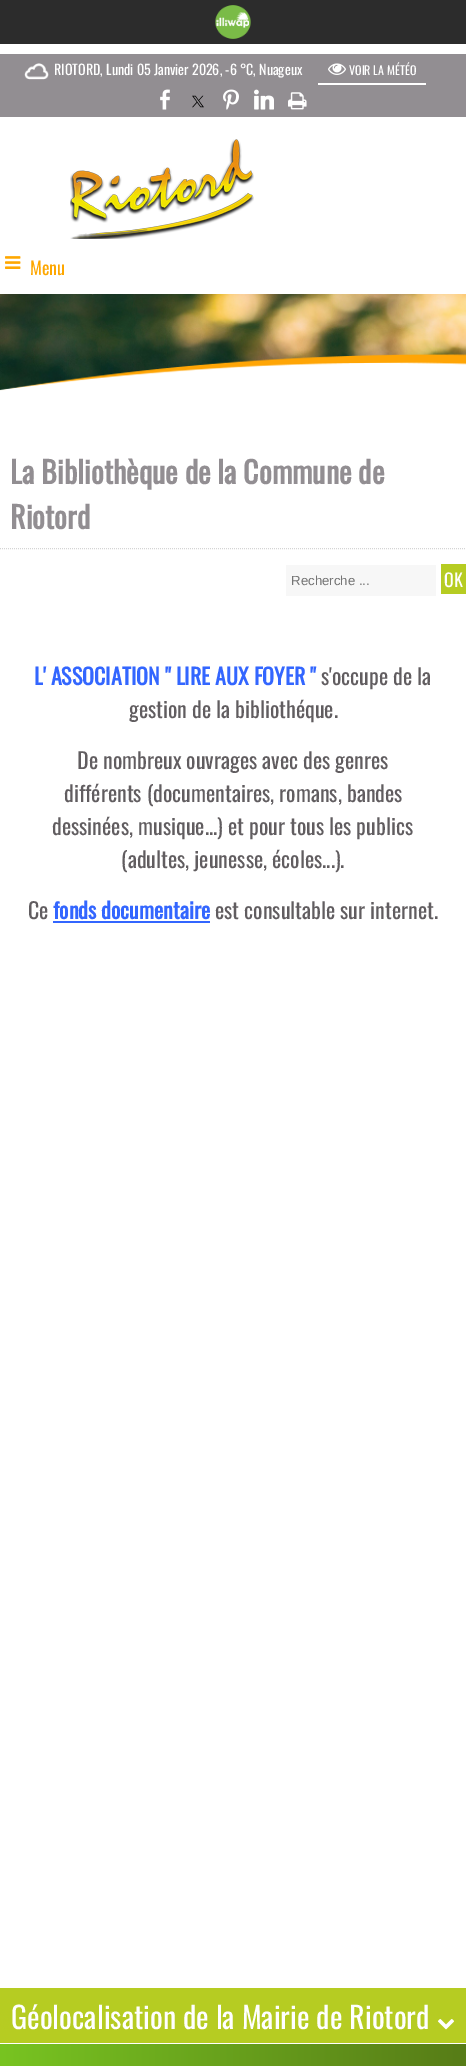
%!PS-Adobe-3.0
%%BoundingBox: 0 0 466 2066
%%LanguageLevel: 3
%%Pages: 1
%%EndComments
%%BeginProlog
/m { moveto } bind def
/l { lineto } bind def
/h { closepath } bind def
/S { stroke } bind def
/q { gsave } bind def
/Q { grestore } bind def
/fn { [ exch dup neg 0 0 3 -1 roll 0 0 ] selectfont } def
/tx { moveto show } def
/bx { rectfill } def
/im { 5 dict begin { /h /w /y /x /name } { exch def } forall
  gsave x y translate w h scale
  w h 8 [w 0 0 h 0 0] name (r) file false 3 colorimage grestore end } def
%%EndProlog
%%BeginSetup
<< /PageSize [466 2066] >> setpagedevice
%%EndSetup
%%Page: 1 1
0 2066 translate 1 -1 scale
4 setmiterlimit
1 setgray
0 0 466 2066 bx
0.173 setgray
0 0 466 44 bx
(image0.raw) 215 5 36 34 im
0.573 0.557 0.573 setrgbcolor
0 54 466 63 bx
(image1.raw) 24 63 25 17 im
/Oswald-Regular 14 fn
1 setgray
(RIOTORD, Lundi 05 Janvier 2026, -6 °C, Nuageux) 54 75 tx
318 83 108 2 bx
(image2.raw) 328 63 18 12 im
/Oswald-Regular 12 fn
(VOIR LA MÉTÉO) 349 75 tx
(image3.raw) 160 89 10 21 im
(image4.raw) 192 95 12 13 im
(image5.raw) 223 89 16 21 im
(image6.raw) 254 89 20 21 im
(image7.raw) 288 92 19 18 im
(image8.raw) 70 139 184 100 im
(image9.raw) 5 256 16 13 im
/Oswald-Regular 18 fn
0.996 0.655 0 setrgbcolor
(Menu) 30 275 tx
(image10.raw) 0 294 466 97 im
(image11.raw) 0 354 466 74 im
0.831 setgray
[1 1] 0 setdash
0 548.5 m 466 548.5 l S
/Oswald-Bold 30 fn
0.573 0.557 0.573 setrgbcolor
(La Bibliothèque de la Commune de) 10 484 tx
(Riotord) 10 529 tx
0.969 setgray
286 565 150 31 bx
/LiberationSans-Regular 13.25 fn
0.459 setgray
(Recherche ...) 291 585 tx
0.714 0.8 0.133 setrgbcolor
441 564 25 30 bx
/Oswald-Regular 18 fn
1 setgray
(OK) 444 587 tx
/Oswald-Bold 22 fn
0.2 0.4 1 setrgbcolor
(L' ASSOCIATION " LIRE AUX FOYER ") 34 685 tx
/Oswald-Regular 22 fn
0.38 0.365 0.376 setrgbcolor
(s'occupe de la) 321 685 tx
(gestion de la bibliothéque.) 129 718 tx
(De nombreux ouvrages avec des genres) 77 769 tx
(différents \(documentaires, romans, bandes) 64 802 tx
(dessinées, musique...\) et pour tous les publics) 52 835 tx
(\(adultes, jeunesse, écoles...\).) 121 868 tx
(Ce) 28 919 tx
/Oswald-Bold 22 fn
0.2 0.4 1 setrgbcolor
(fonds documentaire) 53 919 tx
53 921 157 2 bx
/Oswald-Regular 22 fn
0.38 0.365 0.376 setrgbcolor
(est consultable sur internet.) 215 919 tx
0.714 0.8 0.133 setrgbcolor
0 1988 466 55 bx
/Oswald-Regular 30 fn
1 setgray
(Géolocalisation de la Mairie de Riotord) 11 2029 tx
(image12.raw) 437 2019 18 11 im
q 0 2044 m 466 2044 l 466 2066 l 0 2066 l h clip newpath
<< /ShadingType 2 /ColorSpace /DeviceRGB /Coords [0 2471 466 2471] /Extend [true true] /Function << /FunctionType 2 /Domain [0 1] /C0 [0.471 0.769 0.129] /C1 [0.341 0.486 0.09] /N 1 >> >> shfill Q
showpage
%%EOF
